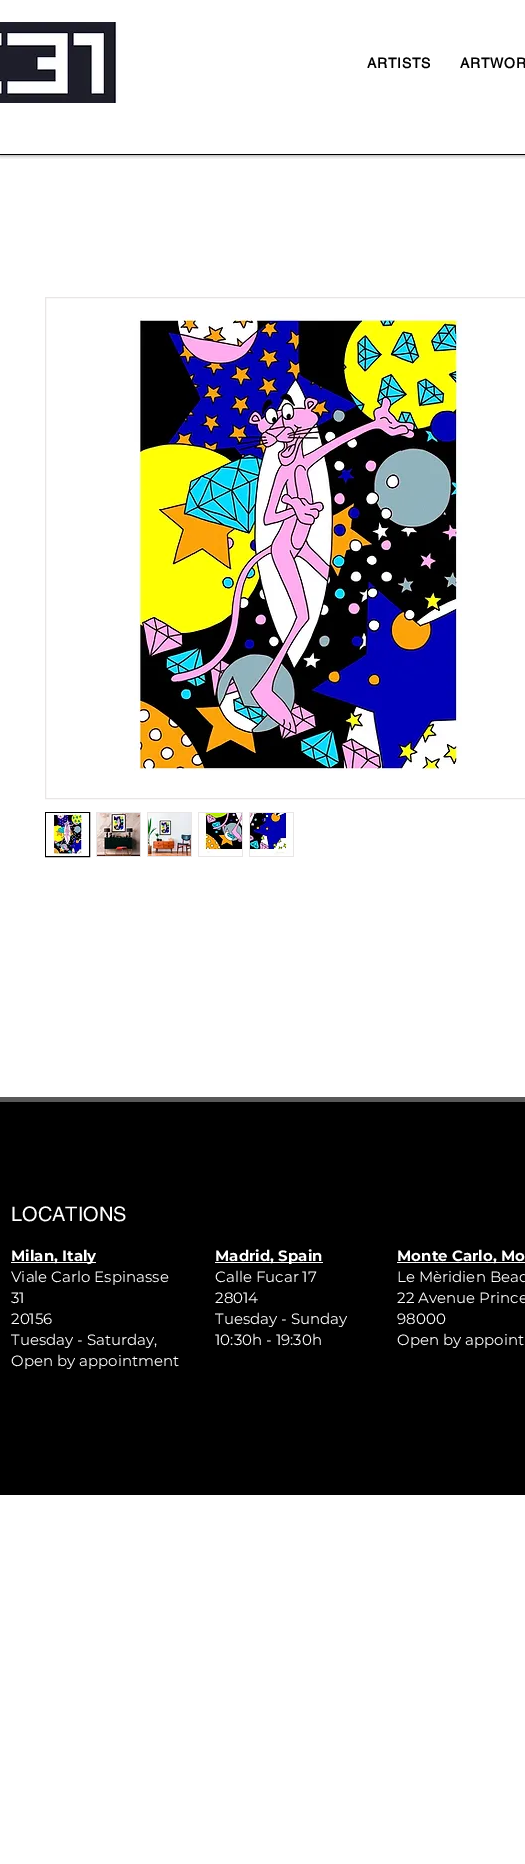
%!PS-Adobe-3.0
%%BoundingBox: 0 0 525 1864
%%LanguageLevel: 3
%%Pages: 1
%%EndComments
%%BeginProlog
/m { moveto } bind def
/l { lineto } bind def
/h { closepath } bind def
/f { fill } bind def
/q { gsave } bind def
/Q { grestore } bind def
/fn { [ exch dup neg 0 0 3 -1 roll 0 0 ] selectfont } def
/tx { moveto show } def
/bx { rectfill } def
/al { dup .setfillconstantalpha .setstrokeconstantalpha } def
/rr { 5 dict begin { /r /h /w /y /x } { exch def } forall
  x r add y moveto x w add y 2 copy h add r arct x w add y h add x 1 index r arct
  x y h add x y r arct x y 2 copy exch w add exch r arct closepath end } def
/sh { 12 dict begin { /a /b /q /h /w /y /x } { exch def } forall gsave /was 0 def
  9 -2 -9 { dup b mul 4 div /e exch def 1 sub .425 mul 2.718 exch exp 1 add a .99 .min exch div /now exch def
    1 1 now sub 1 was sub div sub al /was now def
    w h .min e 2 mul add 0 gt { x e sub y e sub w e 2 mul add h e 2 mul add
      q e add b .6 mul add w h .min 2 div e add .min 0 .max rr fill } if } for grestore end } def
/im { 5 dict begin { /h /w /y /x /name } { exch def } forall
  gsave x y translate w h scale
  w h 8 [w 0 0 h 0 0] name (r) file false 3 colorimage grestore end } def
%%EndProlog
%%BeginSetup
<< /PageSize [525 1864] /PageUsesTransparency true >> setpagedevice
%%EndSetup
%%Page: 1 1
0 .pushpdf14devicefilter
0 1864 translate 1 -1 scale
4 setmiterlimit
1 setgray
0 0 525 1864 bx
q
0 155 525 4 rectclip
0 setgray
0 0 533 155 0 2.5 0.5 sh
Q
0 setgray
0 154 525 1 bx
(image0.raw) 0 22 118 81 im
/helvetica-Bold 14 fn
367 68 m 0.75 0 (ARTISTS) ashow
1 setgray
361 63 m 369.5 53 l 371 54 l 363 63 l 371 72 l 369.5 73 l h f
0 setgray
460 68 m 0.75 0 (ARTWOR) ashow
0.91 0.902 0.902 setrgbcolor
45.5 297.5 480 501 rectstroke
(image1.raw) 134 314 328 457 im
0 setgray
45.5 812.5 44 44 rectstroke
(image2.raw) 46 813 43 43 im
0.91 0.902 0.902 setrgbcolor
96 812 45 45 bx
(image3.raw) 97 813 43 43 im
147 812 45 45 bx
(image4.raw) 148 813 43 43 im
198 812 45 45 bx
(image5.raw) 199 813 43 43 im
249 812 45 45 bx
(image6.raw) 250 813 43 43 im
0.349 setgray
0 1097 525 5 bx
0 setgray
0 1102 525 393 bx
/helvetica-Regular 20 fn
1 setgray
(LOCATIONS) 11 1221 tx
11 1262 85 1 bx
/Montserrat-Bold 15 fn
(Milan, Italy) 11 1261 tx
/Montserrat-Regular 15 fn
(Viale Carlo Espinasse) 11 1282 tx
(31) 11 1303 tx
(20156) 11 1324 tx
(Tuesday - Saturday,) 11 1345 tx
(Open by appointment) 11 1366 tx
215 1262 108 1 bx
/Montserrat-Bold 15 fn
(Madrid, Spain) 215 1261 tx
/Montserrat-Regular 15 fn
(Calle Fucar 17) 215 1282 tx
(28014) 215 1303 tx
(Tuesday - Sunday) 215 1324 tx
(10:30h - 19:30h) 215 1345 tx
397 1262 128 1 bx
/Montserrat-Bold 15 fn
(Monte Carlo, Mo) 397 1261 tx
/Montserrat-Regular 15 fn
(Le Mèridien Beac) 397 1282 tx
(22 Avenue Prince) 397 1303 tx
(98000) 397 1324 tx
(Open by appoint) 397 1345 tx
.poppdf14devicefilter showpage
%%EOF
